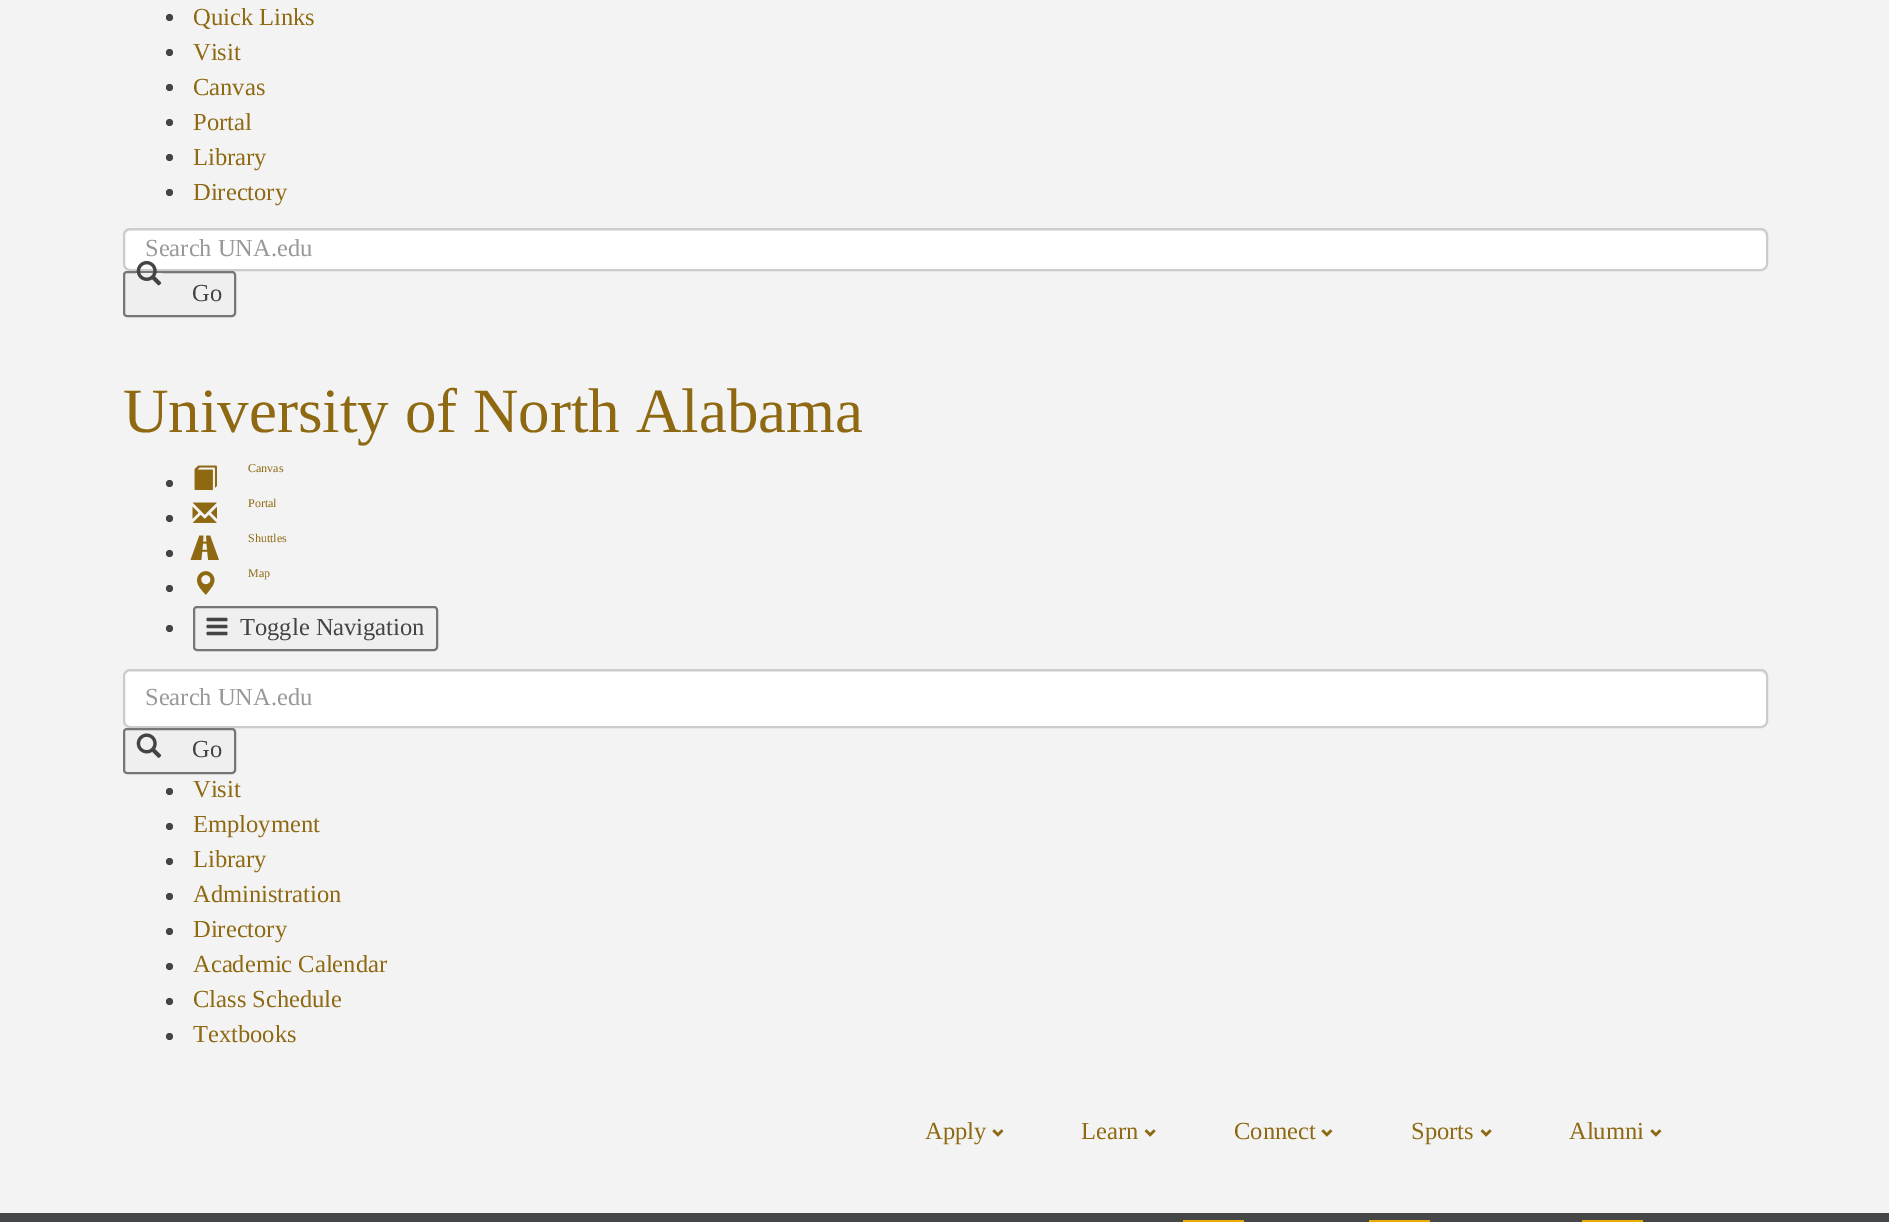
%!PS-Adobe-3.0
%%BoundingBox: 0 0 1889 1222
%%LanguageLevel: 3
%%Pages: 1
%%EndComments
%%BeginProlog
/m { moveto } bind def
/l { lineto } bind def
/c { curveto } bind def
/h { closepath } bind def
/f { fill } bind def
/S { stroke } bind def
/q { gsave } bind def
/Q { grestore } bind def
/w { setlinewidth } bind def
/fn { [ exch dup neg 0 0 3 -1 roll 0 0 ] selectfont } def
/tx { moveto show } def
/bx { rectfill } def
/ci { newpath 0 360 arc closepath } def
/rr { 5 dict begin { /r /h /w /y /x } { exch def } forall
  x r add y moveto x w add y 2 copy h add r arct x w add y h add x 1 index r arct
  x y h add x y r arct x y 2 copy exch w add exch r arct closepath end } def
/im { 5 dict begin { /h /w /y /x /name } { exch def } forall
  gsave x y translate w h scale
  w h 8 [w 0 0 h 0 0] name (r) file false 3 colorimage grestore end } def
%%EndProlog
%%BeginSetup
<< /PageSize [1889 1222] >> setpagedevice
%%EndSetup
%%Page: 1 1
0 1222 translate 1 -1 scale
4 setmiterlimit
0.953 setgray
0 0 1889 1222 bx
0.267 setgray
169.5 17.5 3.5 ci f
/LiberationSerif-Regular 24.5 fn
0.557 0.412 0.071 setrgbcolor
(Quick Links) 193 25 tx
0.267 setgray
169.5 52.5 3.5 ci f
0.557 0.412 0.071 setrgbcolor
(Visit) 193 60 tx
0.267 setgray
169.5 87.5 3.5 ci f
0.557 0.412 0.071 setrgbcolor
(Canvas) 193 95 tx
0.267 setgray
169.5 122.5 3.5 ci f
0.557 0.412 0.071 setrgbcolor
(Portal) 193 130 tx
0.267 setgray
169.5 157.5 3.5 ci f
0.557 0.412 0.071 setrgbcolor
(Library) 193 165 tx
0.267 setgray
169.5 192.5 3.5 ci f
0.557 0.412 0.071 setrgbcolor
(Directory) 193 200 tx
1 setgray
123 228 1645 43 7 rr f
0.925 setgray
130 231 m 1760 231 l 1763 231 1766 233 1766 236 c 1766 233 1765 229 1761 229 c 129 229 l 125 229 124 233 124 236 c 124 233 127 231 130 231 c h f
0.8 setgray
2 w
124 229 1643 41 6 rr S
0.6 setgray
(Search UNA.edu) 145 256 tx
0.937 setgray
124 272 111 44 3 rr q f Q
0.463 setgray
S
(image0.raw) 136 260 26 26 im
0.267 setgray
(Go) 192 301 tx
/LiberationSerif-Regular 63 fn
0.557 0.412 0.071 setrgbcolor
(University of North Alabama) 123 432 tx
(image1.raw) 194 465 23 25 im
/LiberationSerif-Regular 12 fn
(Canvas) 248 472 tx
0.267 setgray
169.5 483.5 3.5 ci f
(image2.raw) 192 502 25 21 im
0.557 0.412 0.071 setrgbcolor
(Portal) 248 507 tx
0.267 setgray
169.5 518.5 3.5 ci f
(image3.raw) 190 535 29 25 im
0.557 0.412 0.071 setrgbcolor
(Shuttles) 248 542 tx
0.267 setgray
169.5 553.5 3.5 ci f
(image4.raw) 197 571 18 24 im
0.557 0.412 0.071 setrgbcolor
(Map) 248 577 tx
0.267 setgray
169.5 588.5 3.5 ci f
169.5 628.5 3.5 ci f
0.937 setgray
194 607 243 43 3 rr q f Q
0.463 setgray
S
(image5.raw) 206 617 22 19 im
/LiberationSerif-Regular 24.5 fn
0.267 setgray
(Toggle Navigation) 240 635 tx
1 setgray
123 669 1645 59 7 rr f
0.925 setgray
130 672 m 1760 672 l 1763 672 1766 674 1766 677 c 1766 674 1765 670 1761 670 c 129 670 l 125 670 124 674 124 677 c 124 674 127 672 130 672 c h f
0.8 setgray
124 670 1643 57 6 rr S
0.6 setgray
(Search UNA.edu) 145 705 tx
0.937 setgray
124 729 111 44 3 rr q f Q
0.463 setgray
S
(image6.raw) 136 733 26 25 im
0.267 setgray
(Go) 192 757 tx
169.5 791.5 3.5 ci f
0.557 0.412 0.071 setrgbcolor
(Visit) 193 797 tx
0.267 setgray
169.5 826.5 3.5 ci f
0.557 0.412 0.071 setrgbcolor
(Employment) 193 832 tx
0.267 setgray
169.5 861.5 3.5 ci f
0.557 0.412 0.071 setrgbcolor
(Library) 193 867 tx
0.267 setgray
169.5 896.5 3.5 ci f
0.557 0.412 0.071 setrgbcolor
(Administration) 193 902 tx
0.267 setgray
169.5 931.5 3.5 ci f
0.557 0.412 0.071 setrgbcolor
(Directory) 193 937 tx
0.267 setgray
169.5 966.5 3.5 ci f
0.557 0.412 0.071 setrgbcolor
(Academic Calendar) 193 972 tx
0.267 setgray
169.5 1001.5 3.5 ci f
0.557 0.412 0.071 setrgbcolor
(Class Schedule) 193 1007 tx
0.267 setgray
169.5 1036.5 3.5 ci f
0.557 0.412 0.071 setrgbcolor
(Textbooks) 193 1042 tx
(Apply) 925 1139 tx
(image7.raw) 992 1129 12 8 im
(Learn) 1081 1139 tx
(image8.raw) 1144 1129 12 8 im
(Connect) 1234 1139 tx
(image7.raw) 1321 1129 12 8 im
(Sports) 1411 1139 tx
(image8.raw) 1480 1129 12 8 im
(Alumni) 1569 1139 tx
(image7.raw) 1650 1129 12 8 im
0.271 0.275 0.282 setrgbcolor
0 1213 1889 9 bx
0.918 0.667 0 setrgbcolor
1183 1220 61 2 bx
1369 1220 61 2 bx
1582 1220 61 2 bx
showpage
%%EOF
